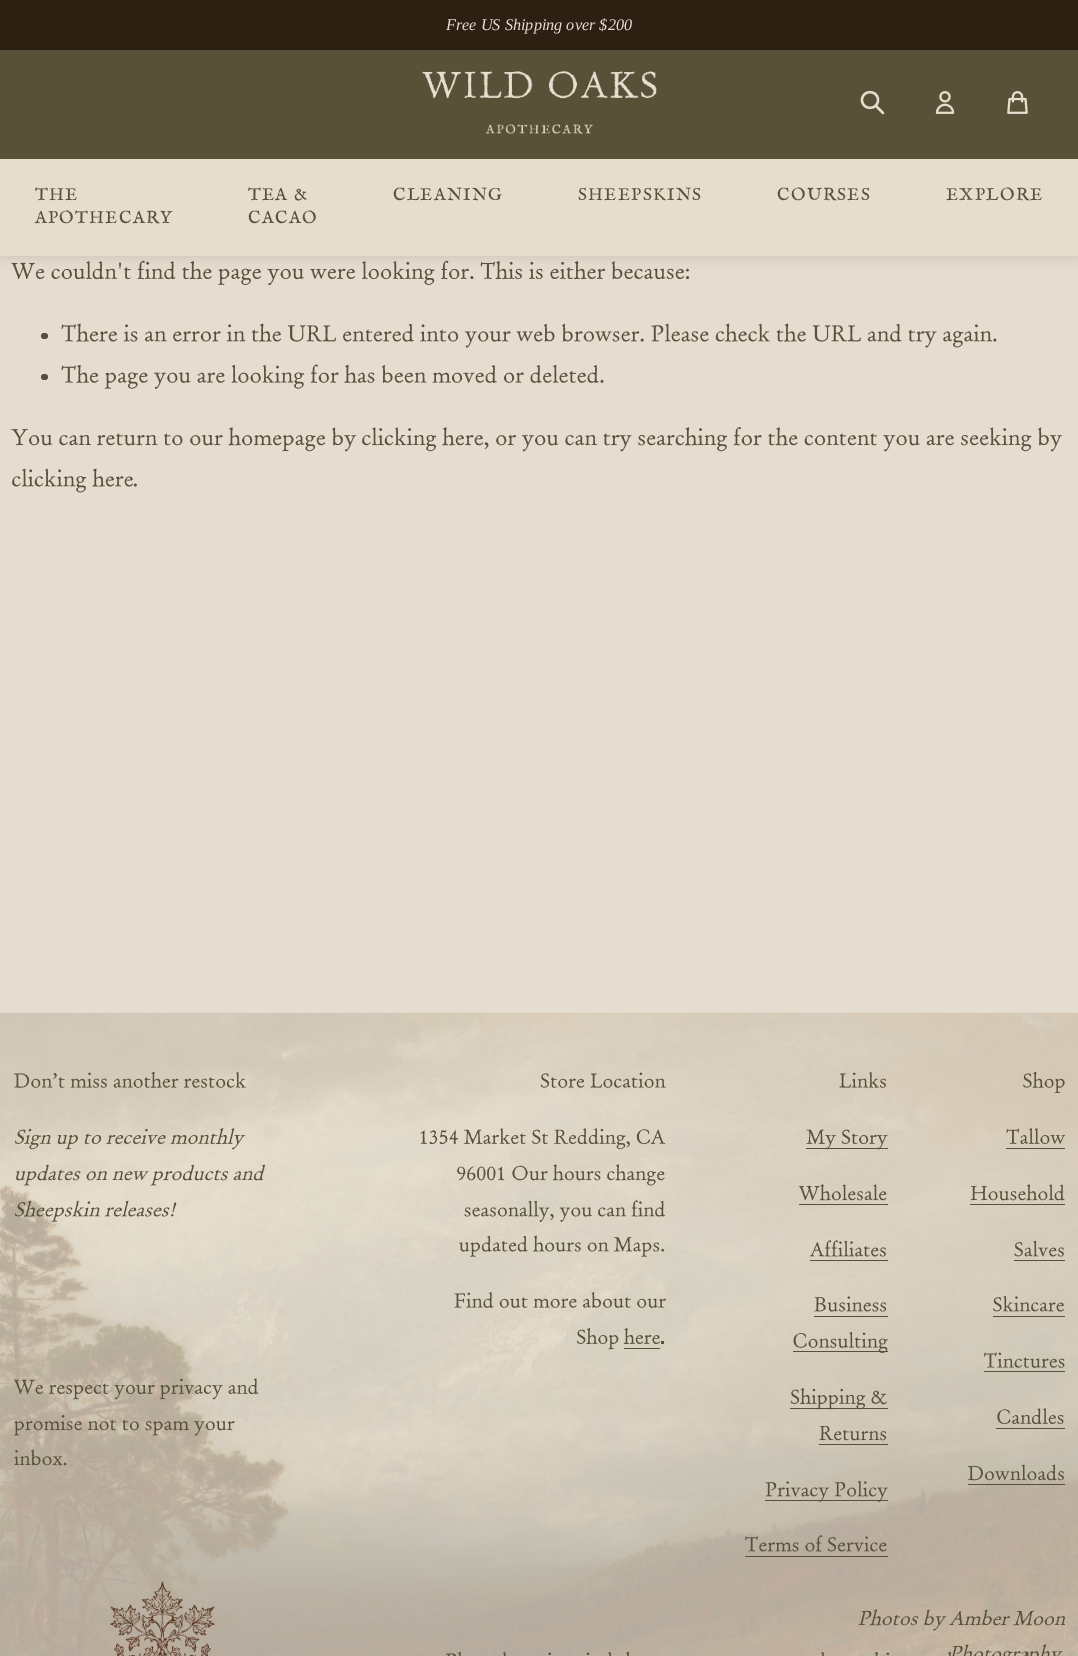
%!PS-Adobe-3.0
%%BoundingBox: 0 0 1078 1656
%%LanguageLevel: 3
%%Pages: 1
%%EndComments
%%BeginProlog
/m { moveto } bind def
/l { lineto } bind def
/c { curveto } bind def
/h { closepath } bind def
/f { fill } bind def
/S { stroke } bind def
/w { setlinewidth } bind def
/fn { [ exch dup neg 0 0 3 -1 roll 0 0 ] selectfont } def
/tx { moveto show } def
/bx { rectfill } def
/al { dup .setfillconstantalpha .setstrokeconstantalpha } def
/rr { 5 dict begin { /r /h /w /y /x } { exch def } forall
  x r add y moveto x w add y 2 copy h add r arct x w add y h add x 1 index r arct
  x y h add x y r arct x y 2 copy exch w add exch r arct closepath end } def
/sh { 12 dict begin { /a /b /q /h /w /y /x } { exch def } forall gsave /was 0 def
  9 -2 -9 { dup b mul 4 div /e exch def 1 sub .425 mul 2.718 exch exp 1 add a .99 .min exch div /now exch def
    1 1 now sub 1 was sub div sub al /was now def
    w h .min e 2 mul add 0 gt { x e sub y e sub w e 2 mul add h e 2 mul add
      q e add b .6 mul add w h .min 2 div e add .min 0 .max rr fill } if } for grestore end } def
/im { 5 dict begin { /h /w /y /x /name } { exch def } forall
  gsave x y translate w h scale
  w h 8 [w 0 0 h 0 0] name (r) file false 3 colorimage grestore end } def
%%EndProlog
%%BeginSetup
<< /PageSize [1078 1656] /PageUsesTransparency true >> setpagedevice
%%EndSetup
%%Page: 1 1
0 .pushpdf14devicefilter
0 1656 translate 1 -1 scale
4 setmiterlimit
0.894 0.867 0.816 setrgbcolor
0 0 1078 1656 bx
(image3.raw) 11 260 678 26 im
0.18 0.122 0.075 setrgbcolor
0 49 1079 210 0 6 0.1 sh
0 0 1078 50 bx
/LiberationSerif-Italic 16.25 fn
0.902 0.867 0.812 setrgbcolor
(Free US Shipping over $200) 446 30 tx
0.349 0.318 0.216 setrgbcolor
0 50 1078 109 bx
(image0.raw) 421 71 236 63 im
0.902 0.867 0.812 setrgbcolor
2.3 w
1 setlinecap
1 setlinejoin
883 113 m 876 106 l 878 100 m 878 110.5 862 110.5 862 100 c 862 89.5 878 89.5 878 100 c h S
(image1.raw) 935 91 20 23 im
(image2.raw) 1007 91 21 23 im
0 159 1078 97 bx
/IMFELLEnglish-Regular 17.5 fn
0.349 0.318 0.216 setrgbcolor
35 200 m 1.25 0 (THE) ashow
35 223 m 1.25 0 (APOTHECARY) ashow
248 200 m 1.25 0 (TEA &) ashow
248 223 m 1.25 0 (CACAO) ashow
393 200 m 1.25 0 (CLEANING) ashow
578 200 m 1.25 0 (SHEEPSKINS) ashow
777 200 m 1.25 0 (COURSES) ashow
946 200 m 1.25 0 (EXPLORE) ashow
0.345 0.318 0.227 setrgbcolor
41 333 7 6 3 rr f
(image4.raw) 61 323 936 25 im
41 374 7 6 3 rr f
(image5.raw) 61 364 543 25 im
(image6.raw) 11 427 346 25 im
(image7.raw) 362 427 121 25 im
(image8.raw) 484 427 314 25 im
(image9.raw) 804 427 259 25 im
(image10.raw) 12 468 121 25 im
(image11.raw) 133 483 4 4 im
(image12.raw) 0 1012 1078 644 im
(image13.raw) 14 1071 232 17 im
(image14.raw) 15 1128 231 22 im
(image15.raw) 16 1164 249 22 im
(image16.raw) 15 1200 162 22 im
(image17.raw) 540 1072 126 16 im
(image18.raw) 420 1128 246 22 im
(image19.raw) 457 1164 208 22 im
(image20.raw) 464 1200 202 22 im
(image21.raw) 459 1235 205 22 im
(image22.raw) 454 1292 212 16 im
(image23.raw) 577 1328 42 22 im
(image24.raw) 623 1328 37 17 im
624 1348 36 1 bx
661 1341 3 3 bx
(image25.raw) 839 1072 47 16 im
806 1148 82 1 bx
(image26.raw) 806 1129 82 21 im
(image27.raw) 798 1184 89 17 im
799 1204 89 1 bx
(image28.raw) 810 1240 76 17 im
810 1260 78 1 bx
(image29.raw) 814 1296 73 16 im
814 1316 74 1 bx
793 1351 95 1 bx
(image30.raw) 793 1332 95 21 im
790 1408 98 1 bx
(image31.raw) 790 1388 97 22 im
(image32.raw) 819 1426 68 15 im
819 1444 69 1 bx
765 1500 123 1 bx
(image33.raw) 765 1480 123 22 im
(image34.raw) 745 1535 142 17 im
745 1556 143 1 bx
(image35.raw) 1023 1071 42 22 im
(image36.raw) 1006 1128 60 16 im
1006 1148 59 1 bx
(image37.raw) 970 1184 95 17 im
970 1204 95 1 bx
(image38.raw) 1014 1240 50 17 im
1014 1260 51 1 bx
(image39.raw) 993 1295 71 17 im
993 1316 72 1 bx
(image40.raw) 984 1352 81 16 im
984 1371 81 1 bx
(image41.raw) 997 1408 67 17 im
996 1428 69 1 bx
(image42.raw) 967 1464 97 17 im
968 1484 97 1 bx
(image43.raw) 13 1378 246 22 im
(image44.raw) 13 1415 222 21 im
(image45.raw) 14 1449 53 17 im
(image46.raw) 110 1581 105 75 im
(image47.raw) 858 1609 207 22 im
(image49.raw) 445 1651 584 5 im
(image48.raw) 952 1644 111 12 im
.poppdf14devicefilter showpage
%%EOF
